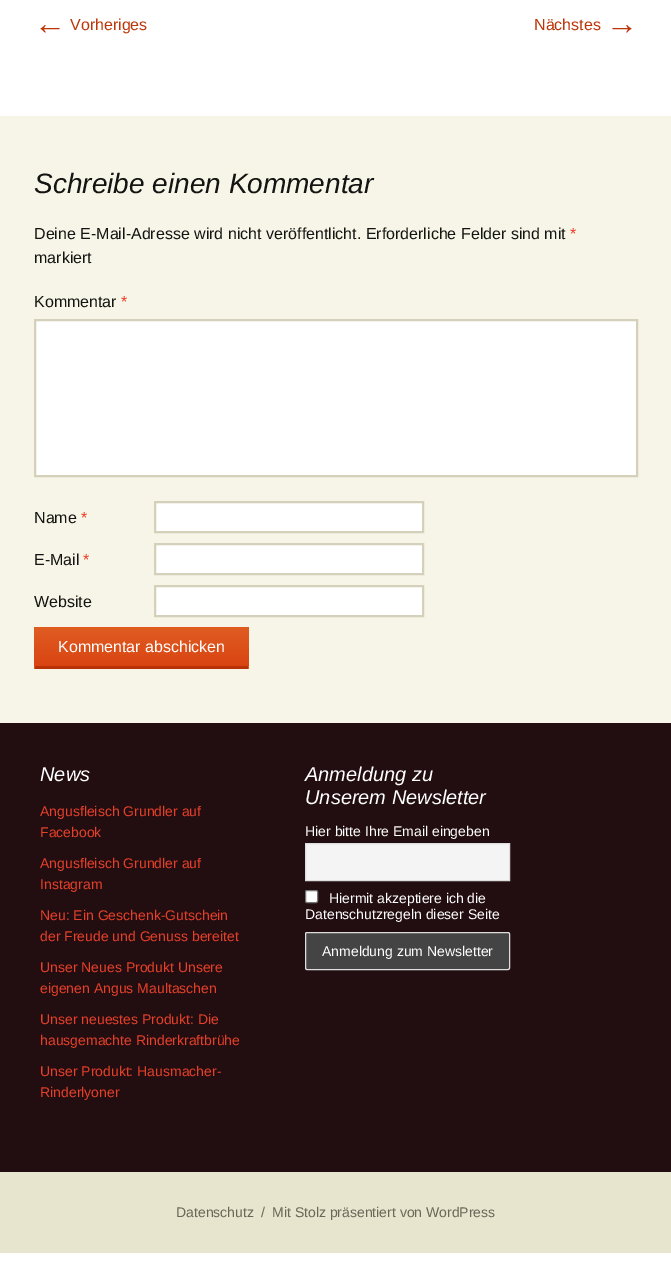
%!PS-Adobe-3.0
%%BoundingBox: 0 0 671 1277
%%LanguageLevel: 3
%%Pages: 1
%%EndComments
%%BeginProlog
/m { moveto } bind def
/l { lineto } bind def
/c { curveto } bind def
/h { closepath } bind def
/f { fill } bind def
/S { stroke } bind def
/q { gsave } bind def
/Q { grestore } bind def
/w { setlinewidth } bind def
/fn { [ exch dup neg 0 0 3 -1 roll 0 0 ] selectfont } def
/tx { moveto show } def
/bx { rectfill } def
/rr { 5 dict begin { /r /h /w /y /x } { exch def } forall
  x r add y moveto x w add y 2 copy h add r arct x w add y h add x 1 index r arct
  x y h add x y r arct x y 2 copy exch w add exch r arct closepath end } def
%%EndProlog
%%BeginSetup
<< /PageSize [671 1277] >> setpagedevice
%%EndSetup
%%Page: 1 1
0 1277 translate 1 -1 scale
4 setmiterlimit
1 setgray
0 0 671 1277 bx
/LiberationSans-Regular 32 fn
0.737 0.212 0.039 setrgbcolor
(←) 34 34 tx
/LiberationSans-Regular 16 fn
(Vorheriges) 70 30 tx
(Nächstes) 534 30 tx
/LiberationSans-Regular 32 fn
(→) 606 34 tx
0.969 0.961 0.906 setrgbcolor
0 116 671 607 bx
/LiberationSans-Italic 28 fn
0.078 0.078 0.071 setrgbcolor
(Schreibe einen Kommentar) 34 193 tx
/LiberationSans-Regular 16 fn
(Deine E-Mail-Adresse wird nicht veröffentlicht. Erforderliche Felder sind mit) 34 239 tx
0.929 0.2 0.11 setrgbcolor
(*) 570 239 tx
0.078 0.078 0.071 setrgbcolor
(markiert) 34 263 tx
(Kommentar) 34 307 tx
0.929 0.2 0.11 setrgbcolor
(*) 121 307 tx
1 setgray
35 320 m 637 320 l 637 476 l 35 476 l h q f Q
0.831 0.816 0.729 setrgbcolor
2 w
S
0.078 0.078 0.071 setrgbcolor
(Name) 34 523 tx
0.929 0.2 0.11 setrgbcolor
(*) 81 523 tx
1 setgray
155 502 m 423 502 l 423 532 l 155 532 l h q f Q
0.831 0.816 0.729 setrgbcolor
S
0.078 0.078 0.071 setrgbcolor
(E-Mail) 34 565 tx
0.929 0.2 0.11 setrgbcolor
(*) 83 565 tx
1 setgray
155 544 m 423 544 l 423 574 l 155 574 l h q f Q
0.831 0.816 0.729 setrgbcolor
S
0.078 0.078 0.071 setrgbcolor
(Website) 34 607 tx
1 setgray
155 586 m 423 586 l 423 616 l 155 616 l h q f Q
0.831 0.816 0.729 setrgbcolor
S
q 36 627 m 247 627 l 248 627 249 628 249 629 c 249 666 l 34 666 l 34 629 l 34 628 35 627 36 627 c h clip newpath
<< /ShadingType 2 /ColorSpace /DeviceRGB /Coords [142 627 142 666] /Extend [true true] /Function << /FunctionType 2 /Domain [0 1] /C0 [0.878 0.365 0.133] /C1 [0.851 0.267 0.071] /N 1 >> >> shfill Q
q 34 666 m 249 666 l 249 667 l 249 668 248 669 247 669 c 36 669 l 35 669 34 668 34 667 c h clip newpath
<< /ShadingType 2 /ColorSpace /DeviceRGB /Coords [142 666 142 705] /Extend [true true] /Function << /FunctionType 2 /Domain [0 1] /C0 [0.878 0.365 0.133] /C1 [0.851 0.267 0.071] /N 1 >> >> shfill Q
0.725 0.196 0.027 setrgbcolor
35 666 213 3 bx
1 setgray
(Kommentar abschicken) 58 652 tx
0.91 0.898 0.808 setrgbcolor
0 1172 671 81 bx
0.133 0.055 0.063 setrgbcolor
0 723 671 449 bx
/LiberationSans-Italic 20 fn
1 setgray
(News) 40 781 tx
/LiberationSans-Regular 14 fn
0.902 0.251 0.165 setrgbcolor
(Angusfleisch Grundler auf) 40 816 tx
(Facebook) 40 837 tx
(Angusfleisch Grundler auf) 40 868 tx
(Instagram) 40 889 tx
(Neu: Ein Geschenk-Gutschein) 40 920 tx
(der Freude und Genuss bereitet) 40 941 tx
(Unser Neues Produkt Unsere) 40 972 tx
(eigenen Angus Maultaschen) 40 993 tx
(Unser neuestes Produkt: Die) 40 1024 tx
(hausgemachte Rinderkraftbrühe) 40 1045 tx
(Unser Produkt: Hausmacher-) 40 1076 tx
(Rinderlyoner) 40 1097 tx
/LiberationSans-Italic 20 fn
1 setgray
(Anmeldung zu) 305 781 tx
(Unserem Newsletter) 305 804 tx
/LiberationSans-Regular 14 fn
(Hier bitte Ihre Email eingeben) 305 836 tx
0.957 setgray
305.5 843.5 m 509.5 843.5 l 509.5 880.5 l 305.5 880.5 l h q f Q
0.867 setgray
1 w
S
1 setgray
305.5 890.5 12 12 1.5 rr q f Q
0.463 setgray
S
1 setgray
(Hiermit akzeptiere ich die) 329 903 tx
(Datenschutzregeln dieser Seite) 305 919 tx
0.267 setgray
305.5 932.5 204 37 1.5 rr q f Q
0.867 setgray
S
1 setgray
(Anmeldung zum Newsletter) 322 956 tx
0.408 0.404 0.345 setrgbcolor
(Datenschutz) 176 1217 tx
(/) 261 1217 tx
(Mit Stolz präsentiert von WordPress) 272 1217 tx
showpage
%%EOF
